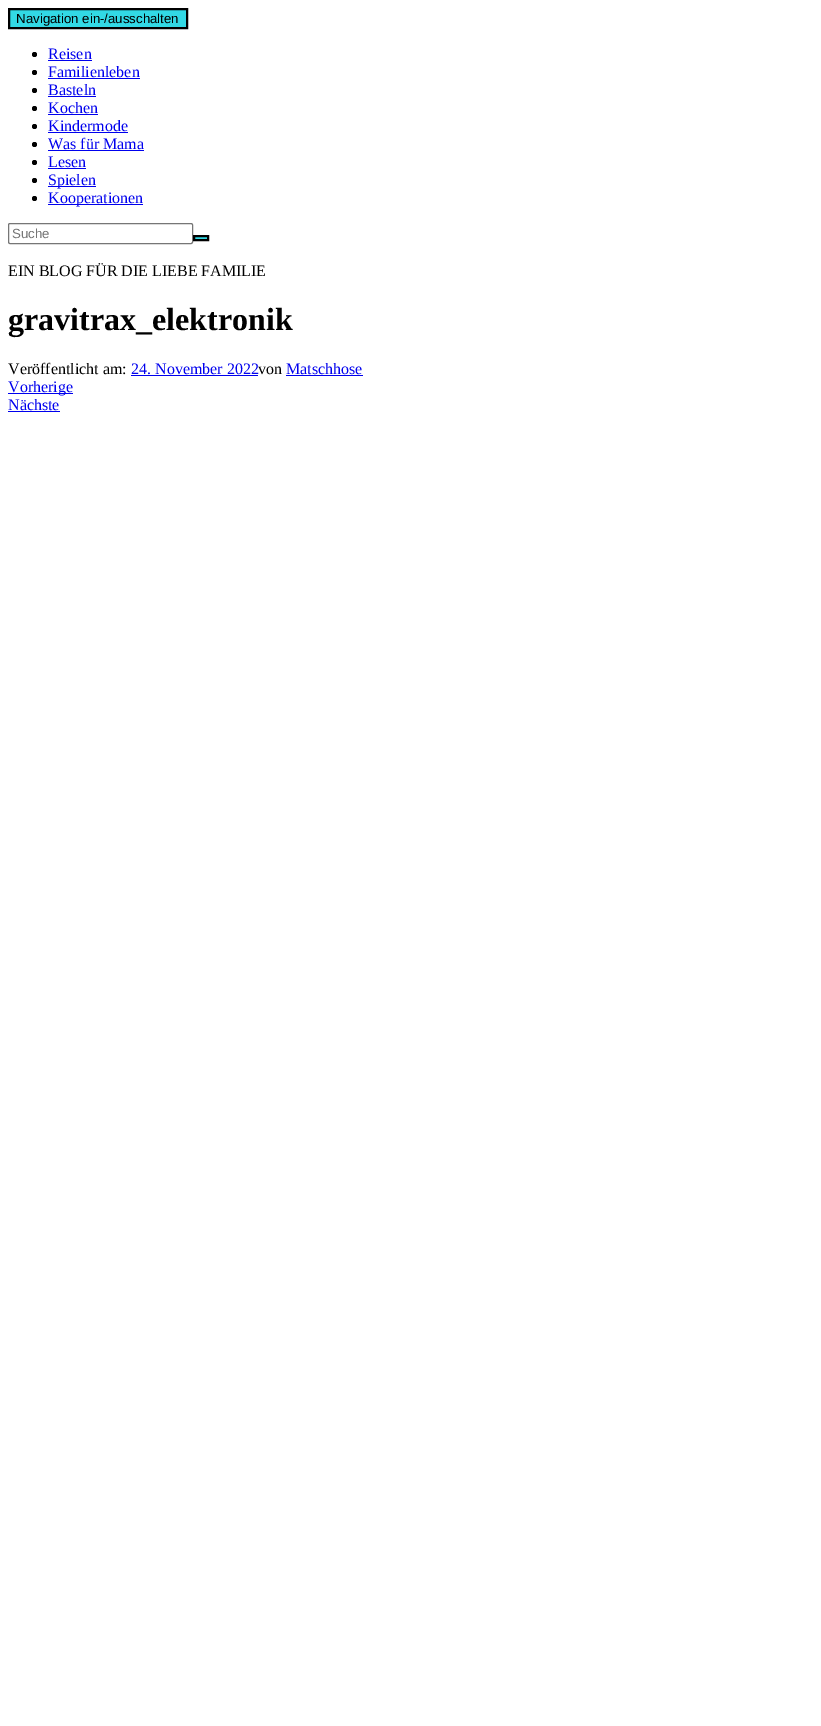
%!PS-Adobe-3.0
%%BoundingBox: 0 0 821 1726
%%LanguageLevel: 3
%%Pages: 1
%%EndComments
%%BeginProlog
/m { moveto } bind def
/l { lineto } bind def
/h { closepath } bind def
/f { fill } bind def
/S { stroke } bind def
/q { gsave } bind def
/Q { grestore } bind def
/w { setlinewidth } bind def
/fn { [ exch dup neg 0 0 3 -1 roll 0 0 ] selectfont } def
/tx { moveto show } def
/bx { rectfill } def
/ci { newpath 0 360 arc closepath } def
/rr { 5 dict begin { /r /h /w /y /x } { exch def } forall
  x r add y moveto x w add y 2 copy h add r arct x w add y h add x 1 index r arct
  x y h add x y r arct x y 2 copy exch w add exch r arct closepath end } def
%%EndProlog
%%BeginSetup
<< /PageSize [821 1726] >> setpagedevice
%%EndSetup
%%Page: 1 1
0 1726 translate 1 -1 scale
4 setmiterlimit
1 setgray
0 0 821 1726 bx
0.196 0.851 0.898 setrgbcolor
9 9 m 187 9 l 187 28 l 9 28 l h q f Q
0 setgray
2 w
S
/LiberationSans-Regular 13.25 fn
(Navigation ein-/ausschalten) 16 23 tx
34.5 54.5 2.5 ci f
/LiberationSerif-Regular 16 fn
0 0 0.933 setrgbcolor
(Reisen) 48 59 tx
48 60 44 1 bx
0 setgray
34.5 72.5 2.5 ci f
0 0 0.933 setrgbcolor
(Familienleben) 48 77 tx
48 78 92 1 bx
0 setgray
34.5 90.5 2.5 ci f
0 0 0.933 setrgbcolor
(Basteln) 48 95 tx
48 96 48 1 bx
0 setgray
34.5 108.5 2.5 ci f
0 0 0.933 setrgbcolor
(Kochen) 48 113 tx
48 114 50 1 bx
0 setgray
34.5 126.5 2.5 ci f
0 0 0.933 setrgbcolor
(Kindermode) 48 131 tx
48 132 80 1 bx
0 setgray
34.5 144.5 2.5 ci f
0 0 0.933 setrgbcolor
(Was für Mama) 48 149 tx
48 150 96 1 bx
0 setgray
34.5 162.5 2.5 ci f
0 0 0.933 setrgbcolor
(Lesen) 48 167 tx
48 168 38 1 bx
0 setgray
34.5 180.5 2.5 ci f
0 0 0.933 setrgbcolor
48 186 48 1 bx
(Spielen) 48 185 tx
0 setgray
34.5 198.5 2.5 ci f
0 0 0.933 setrgbcolor
48 204 95 1 bx
(Kooperationen) 48 203 tx
0.463 setgray
1 w
8.5 223.5 184 20 1.5 rr S
/LiberationSans-Regular 13.25 fn
0.459 setgray
(Suche) 12 238 tx
0.196 0.851 0.898 setrgbcolor
194 236 m 208 236 l 208 240 l 194 240 l h q f Q
0 setgray
2 w
S
/LiberationSerif-Regular 16 fn
(EIN BLOG FÜR DIE LIEBE FAMILIE) 8 276 tx
/LiberationSerif-Bold 32 fn
(gravitrax_elektronik) 8 330 tx
/LiberationSerif-Regular 16 fn
(Veröffentlicht am:) 8 374 tx
0 0 0.933 setrgbcolor
(24. November 2022) 131 374 tx
131 375 127 1 bx
0 setgray
(von) 258 374 tx
0 0 0.933 setrgbcolor
(Matschhose) 286 374 tx
286 375 77 1 bx
8 393 65 1 bx
(Vorherige) 8 392 tx
(Nächste) 8 410 tx
8 411 52 1 bx
showpage
%%EOF
